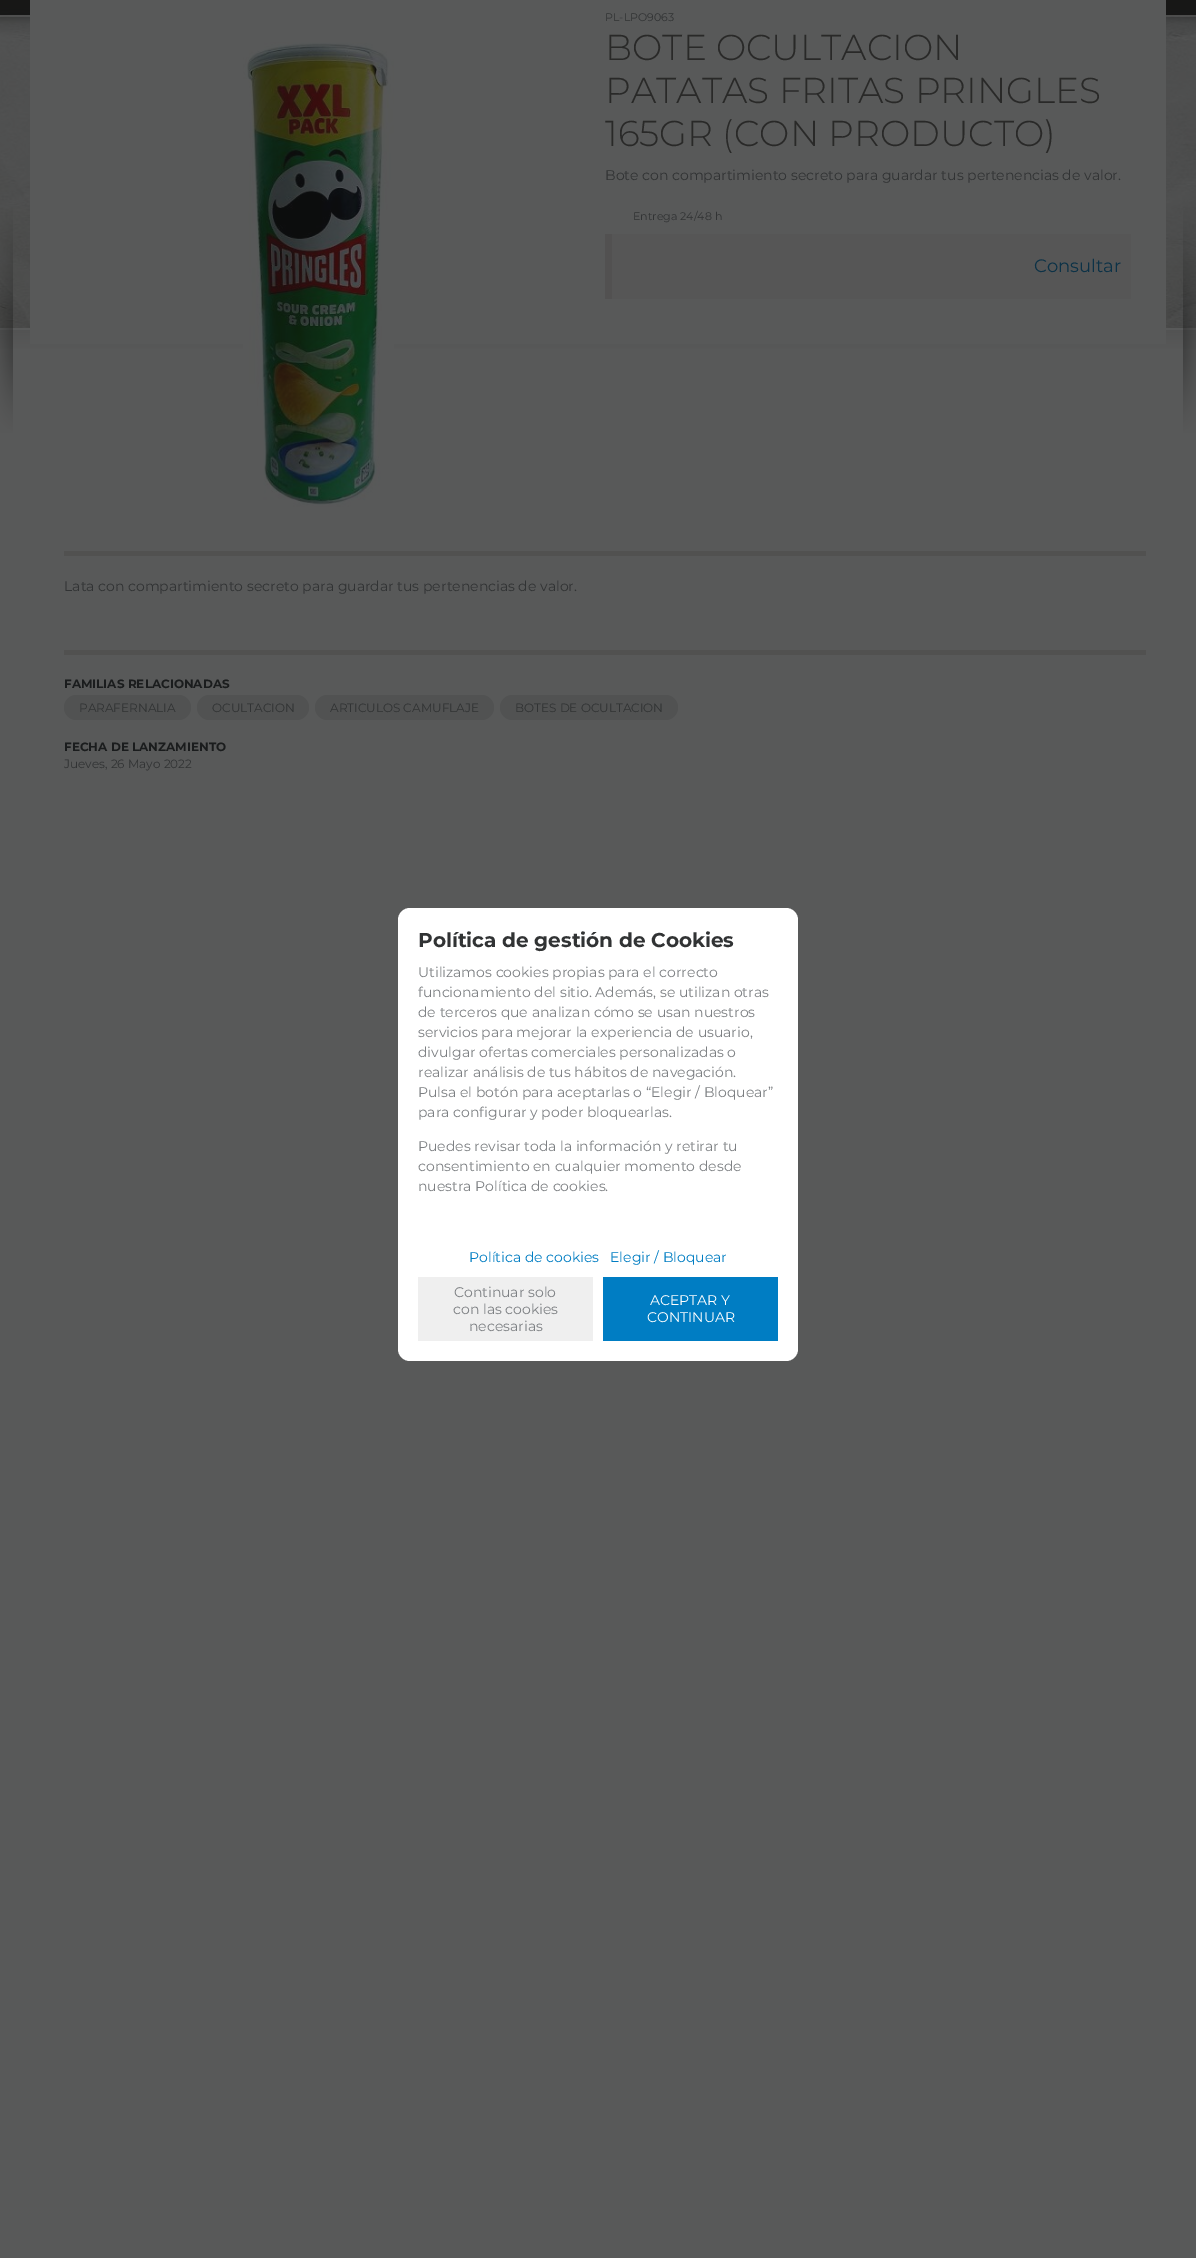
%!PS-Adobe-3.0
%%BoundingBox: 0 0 1196 2258
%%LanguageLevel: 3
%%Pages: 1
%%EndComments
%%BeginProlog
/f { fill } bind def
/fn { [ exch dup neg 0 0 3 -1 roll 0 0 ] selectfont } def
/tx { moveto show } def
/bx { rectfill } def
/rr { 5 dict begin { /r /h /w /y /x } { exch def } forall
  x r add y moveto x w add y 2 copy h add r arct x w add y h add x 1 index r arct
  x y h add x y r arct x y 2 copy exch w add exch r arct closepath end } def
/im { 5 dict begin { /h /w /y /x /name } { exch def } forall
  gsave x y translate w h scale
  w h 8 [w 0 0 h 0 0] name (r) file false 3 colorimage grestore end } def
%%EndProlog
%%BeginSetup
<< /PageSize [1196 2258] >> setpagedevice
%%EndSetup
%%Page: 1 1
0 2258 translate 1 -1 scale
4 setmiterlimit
0.345 0.349 0.349 setrgbcolor
0 0 1196 2258 bx
(image0.raw) 0 0 1196 349 im
(image1.raw) 0 207 1196 226 im
30 0 1136 344 bx
(image2.raw) 243 42 151 465 im
/Montserrat-Regular 11 fn
0.192 0.2 0.204 setrgbcolor
(PL-LPO9063) 605 21 tx
/Montserrat-Light 36 fn
0.161 0.161 0.157 setrgbcolor
(BOTE OCULTACION) 605 60 tx
(PATATAS FRITAS PRINGLES) 605 103 tx
(165GR \(CON PRODUCTO\)) 605 146 tx
/Montserrat-Regular 14 fn
0.192 0.2 0.204 setrgbcolor
(Bote con compartimiento secreto para guardar tus pertenencias de valor.) 605 180 tx
/Montserrat-Regular 11 fn
(Entrega 24/48 h) 633 220 tx
0.337 setgray
612 234 519 65 bx
0.322 0.318 0.318 setrgbcolor
605 234 7 65 bx
/Montserrat-Regular 18 fn
0.047 0.196 0.278 setrgbcolor
(Consultar) 1034 272 tx
0.318 0.318 0.314 setrgbcolor
64 551 1082 5 bx
/Montserrat-Regular 14 fn
0.192 0.2 0.204 setrgbcolor
(Lata con compartimiento secreto para guardar tus pertenencias de valor.) 64 591 tx
0.318 0.318 0.314 setrgbcolor
64 650 1082 5 bx
/Montserrat-Bold 12 fn
0.102 0.11 0.114 setrgbcolor
(FAMILIAS RELACIONADAS) 64 688 tx
0.318 0.322 0.322 setrgbcolor
64 695 127 25 12.5 rr f
/Montserrat-Regular 12 fn
0.192 0.2 0.204 setrgbcolor
(PARAFERNALIA) 79 712 tx
0.318 0.322 0.322 setrgbcolor
197 695 112 25 12.5 rr f
0.192 0.2 0.204 setrgbcolor
(OCULTACION) 212 712 tx
0.318 0.322 0.322 setrgbcolor
315 695 179 25 12.5 rr f
0.192 0.2 0.204 setrgbcolor
(ARTICULOS CAMUFLAJE) 330 712 tx
0.318 0.322 0.322 setrgbcolor
500 695 178 25 12.5 rr f
0.192 0.2 0.204 setrgbcolor
(BOTES DE OCULTACION) 515 712 tx
/Montserrat-Bold 12 fn
0.102 0.11 0.114 setrgbcolor
(FECHA DE LANZAMIENTO) 64 751 tx
/Montserrat-Regular 12 fn
0.192 0.2 0.204 setrgbcolor
(Jueves, 26 Mayo 2022) 64 768 tx
1 setgray
398 908 400 453 12 rr f
/Montserrat-Bold 20 fn
0.192 0.2 0.204 setrgbcolor
(Política de gestión de Cookies) 418 947 tx
/Montserrat-Regular 14 fn
0.49 0.502 0.514 setrgbcolor
(Utilizamos cookies propias para el correcto) 418 977 tx
(funcionamiento del sitio. Además, se utilizan otras) 418 997 tx
(de terceros que analizan cómo se usan nuestros) 418 1017 tx
(servicios para mejorar la experiencia de usuario,) 418 1037 tx
(divulgar ofertas comerciales personalizadas o) 418 1057 tx
(realizar análisis de tus hábitos de navegación.) 418 1077 tx
(Pulsa el botón para aceptarlas o “Elegir / Bloquear”) 418 1097 tx
(para configurar y poder bloquearlas.) 418 1117 tx
(Puedes revisar toda la información y retirar tu) 418 1151 tx
(consentimiento en cualquier momento desde) 418 1171 tx
(nuestra Política de cookies.) 418 1191 tx
0 0.49 0.765 setrgbcolor
(Política de cookies) 469 1262 tx
(Elegir / Bloquear) 610 1262 tx
0.937 setgray
418 1277 175 64 bx
0.49 0.502 0.514 setrgbcolor
(Continuar solo) 454 1297 tx
(con las cookies) 453 1314 tx
(necesarias) 469 1331 tx
0 0.49 0.765 setrgbcolor
603 1277 175 64 bx
1 setgray
(ACEPTAR Y) 650 1305 tx
(CONTINUAR) 647 1322 tx
showpage
%%EOF
